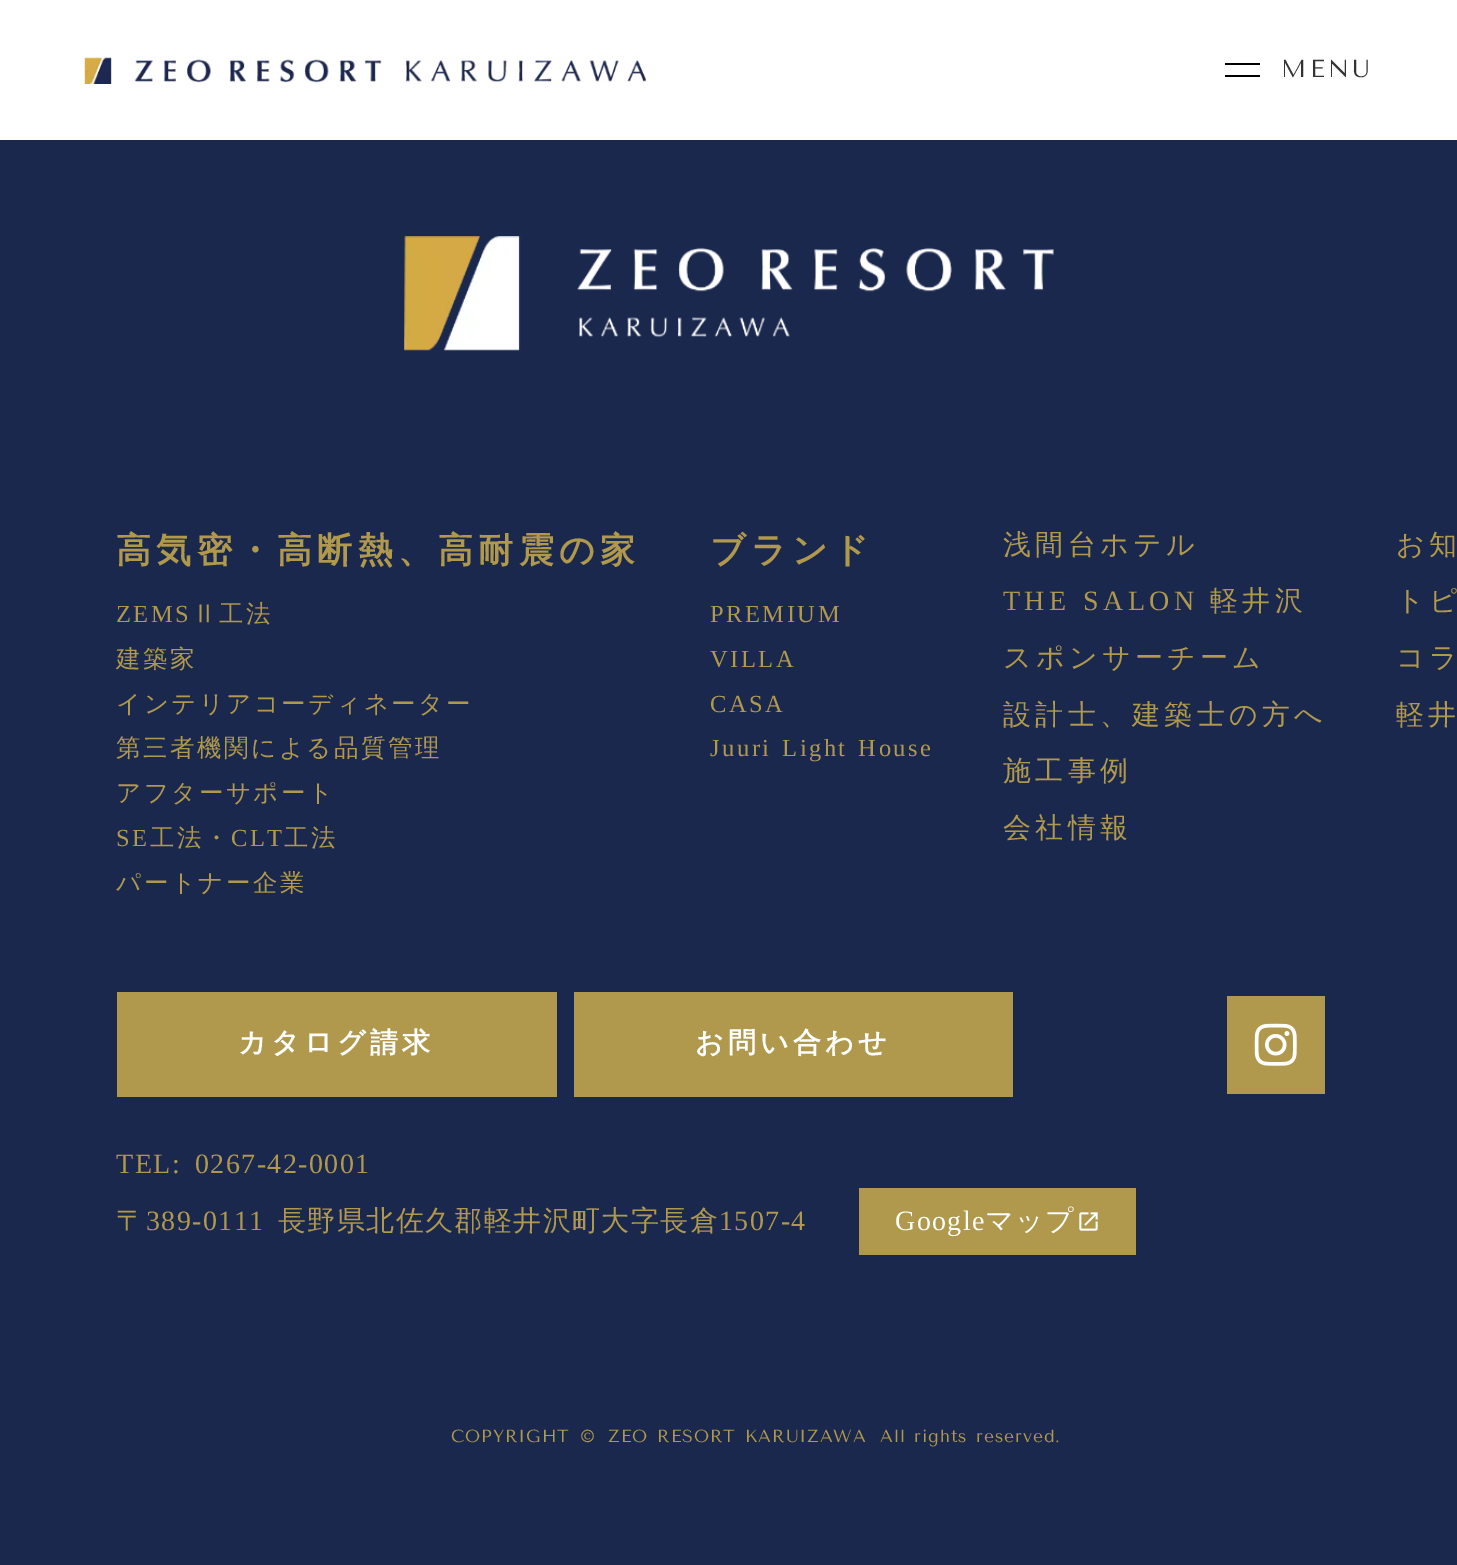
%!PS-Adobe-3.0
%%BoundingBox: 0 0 1457 1565
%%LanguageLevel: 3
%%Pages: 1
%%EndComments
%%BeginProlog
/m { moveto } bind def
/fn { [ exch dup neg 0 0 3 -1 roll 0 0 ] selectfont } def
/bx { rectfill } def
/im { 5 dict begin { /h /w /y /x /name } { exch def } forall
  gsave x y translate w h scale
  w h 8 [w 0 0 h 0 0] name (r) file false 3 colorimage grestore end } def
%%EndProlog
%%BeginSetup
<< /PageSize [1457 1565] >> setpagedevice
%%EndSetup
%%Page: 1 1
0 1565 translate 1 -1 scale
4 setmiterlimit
0.106 0.157 0.306 setrgbcolor
0 0 1457 1565 bx
1 setgray
0 0 1457 140 bx
(image0.raw) 84 57 562 27 im
0 setgray
1225 63 35 2 bx
1225 75 35 2 bx
/TenorSans-Regular 24.5 fn
0.2 setgray
1281 77 m 3.5 0 (MENU) ashow
(image1.raw) 404 236 650 115 im
/WenQuanYiZenHei-Bold 35 fn
0.69 0.6 0.298 setrgbcolor
116 562 m 5.25 0 (高気密・高断熱、高耐震の家) ashow
/LiberationSerif-Regular 24.5 fn
116 622 m 2.5 0 (ZEMS) ashow
/WenQuanYiZenHei-Medium 24.5 fn
192 622 m 2.5 0 (Ⅱ工法) ashow
116 667 m 2.5 0 (建築家) ashow
116 712 m 2.5 0 (インテリアコーディネーター) ashow
116 756 m 2.5 0 (第三者機関による品質管理) ashow
116 801 m 2.5 0 (アフターサポート) ashow
/LiberationSerif-Regular 24.5 fn
116 846 m 2.5 0 (SE) ashow
/WenQuanYiZenHei-Medium 24.5 fn
150 846 m 2.5 0 (工法・) ashow
/LiberationSerif-Regular 24.5 fn
231 846 m 2.5 0 (CLT) ashow
/WenQuanYiZenHei-Medium 24.5 fn
284 846 m 2.5 0 (工法) ashow
116 891 m 2.5 0 (パートナー企業) ashow
/WenQuanYiZenHei-Bold 35 fn
710 562 m 5.25 0 (ブランド) ashow
/LiberationSerif-Regular 24.5 fn
710 622 m 2.5 0 (PREMIUM) ashow
710 667 m 2.5 0 (VILLA) ashow
710 712 m 2.5 0 (CASA) ashow
710 756 m 2 0 32 2.5 0 (Juuri Light House) awidthshow
/WenQuanYiZenHei-Medium 28 fn
1003 554 m 4.25 0 (浅間台ホテル) ashow
/LiberationSerif-Regular 28 fn
1003 610 m 2 0 32 4.25 0 (THE SALON) awidthshow
/WenQuanYiZenHei-Medium 28 fn
1210 610 m 4.25 0 (軽井沢) ashow
1003 667 m 4.25 0 (スポンサーチーム) ashow
1003 724 m 4.25 0 (設計士、建築士の方へ) ashow
1003 780 m 4.25 0 (施工事例) ashow
1003 837 m 4.25 0 (会社情報) ashow
1396 554 m 4.25 0 (お知) ashow
1396 610 m 4.25 0 (トピ) ashow
1396 667 m 4.25 0 (コラ) ashow
1396 724 m 4.25 0 (軽井) ashow
117 992 440 105 bx
/WenQuanYiZenHei-Bold 28 fn
1 setgray
238 1052 m 4.25 0 (カタログ請求) ashow
0.69 0.6 0.298 setrgbcolor
574 992 439 105 bx
1 setgray
695 1052 m 4.25 0 (お問い合わせ) ashow
0.69 0.6 0.298 setrgbcolor
1227 996 98 98 bx
(image2.raw) 1254 1023 43 43 im
/LiberationSerif-Regular 28 fn
116 1173 m 1.4 0 (TEL:) ashow
195 1173 m 1.4 0 (0267-42-0001) ashow
/WenQuanYiZenHei-Medium 28 fn
116 1230 m 1.4 0 (〒) ashow
/LiberationSerif-Regular 28 fn
146 1230 m 1.4 0 (389-0111) ashow
/WenQuanYiZenHei-Medium 28 fn
278 1230 m 1.4 0 (長野県北佐久郡軽井沢町大字長倉) ashow
/LiberationSerif-Regular 28 fn
719 1230 m 1.4 0 (1507-4) ashow
859 1188 277 67 bx
1 setgray
895 1230 m 1.4 0 (Google) ashow
/WenQuanYiZenHei-Medium 28 fn
985 1230 m 1.4 0 (マップ) ashow
(image3.raw) 1079 1212 19 19 im
/TenorSans-Regular 17.5 fn
0.69 0.6 0.298 setrgbcolor
451 1442 m 3 0 32 0.9 0 (COPYRIGHT ©) awidthshow
608 1442 m 2 0 32 0.9 0 (ZEO RESORT KARUIZAWA) awidthshow
880 1442 m 2 0 32 0.9 0 (All rights reserved.) awidthshow
showpage
%%EOF
